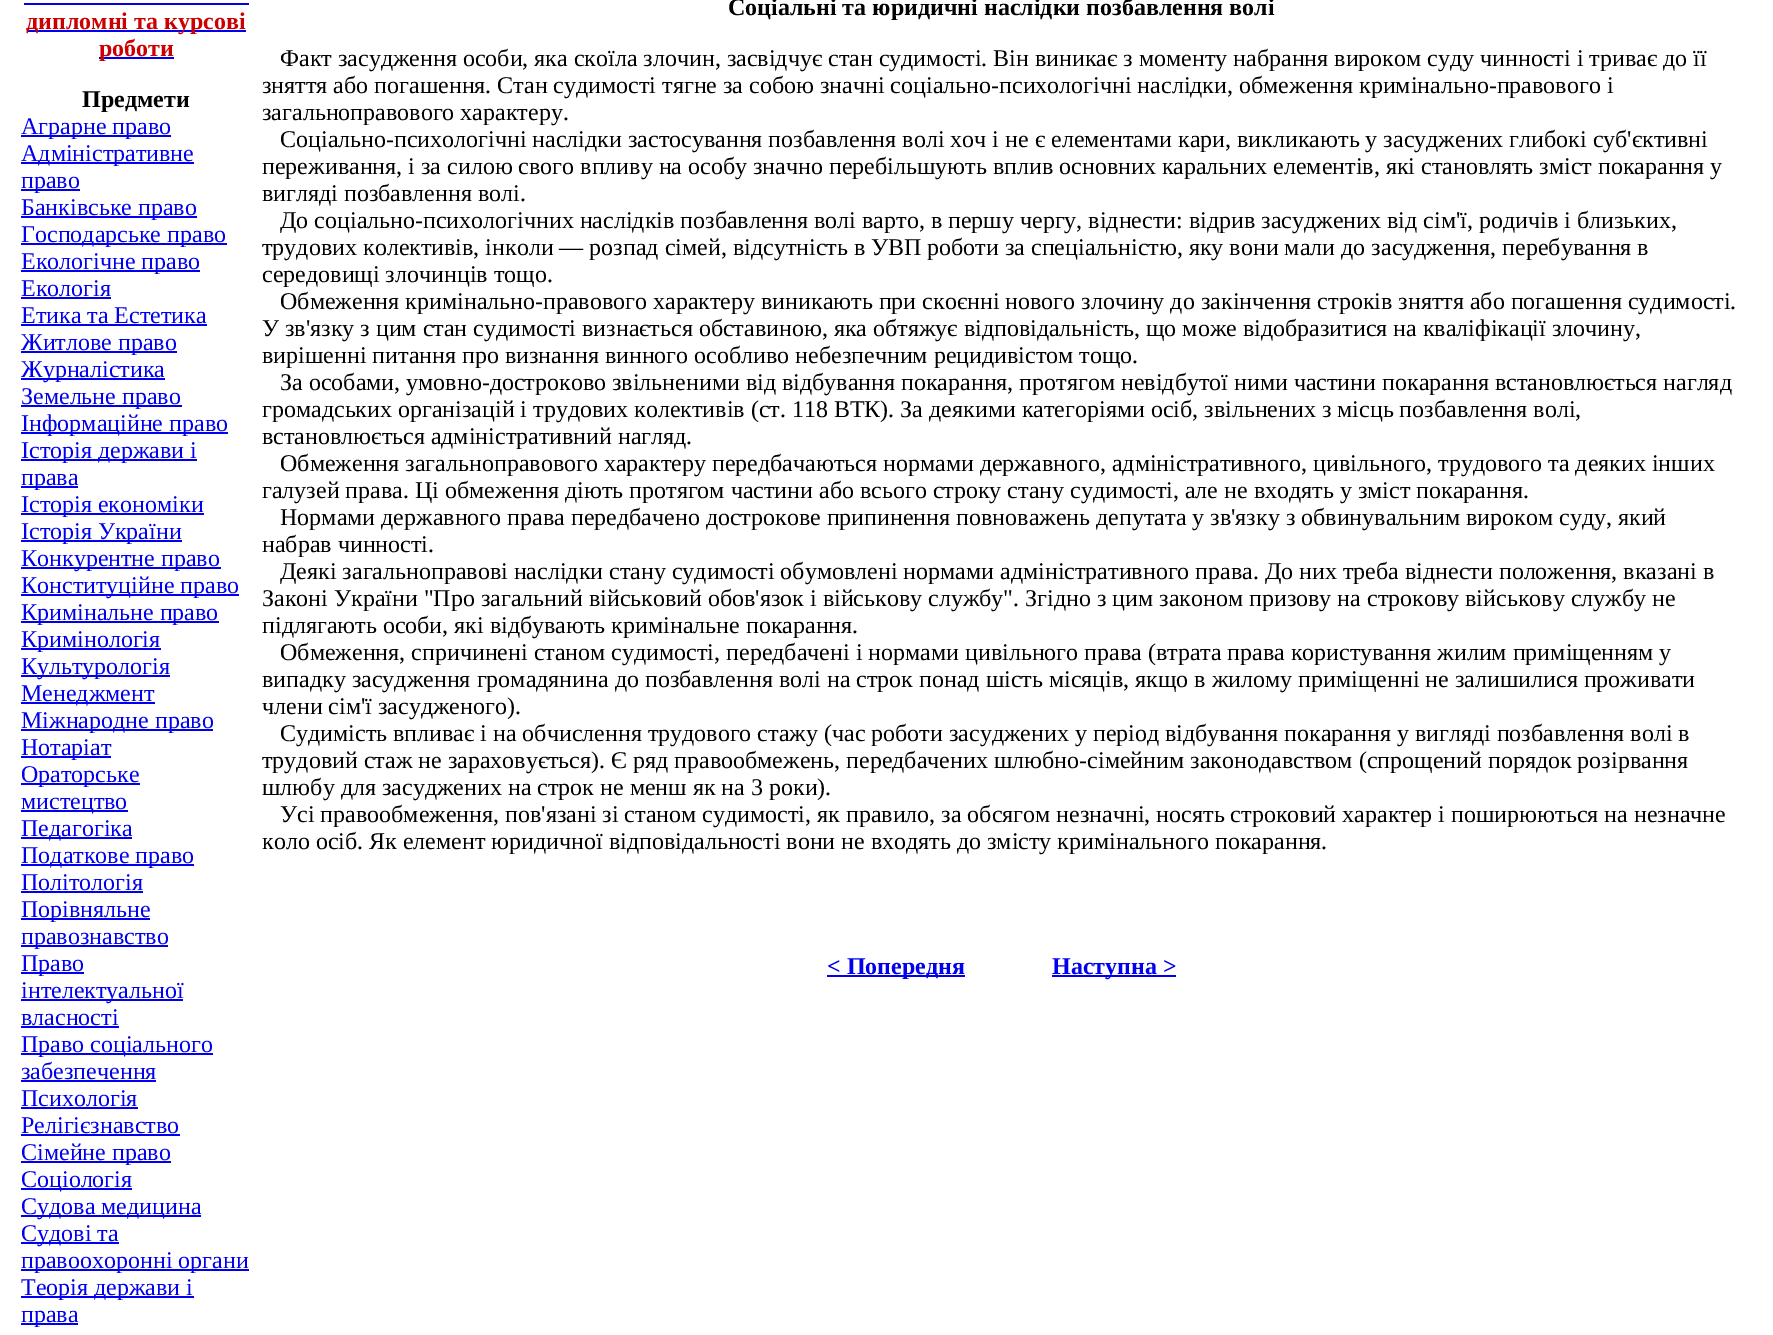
%!PS-Adobe-3.0
%%BoundingBox: 0 0 1773 1335
%%LanguageLevel: 3
%%Pages: 1
%%EndComments
%%BeginProlog
/fn { [ exch dup neg 0 0 3 -1 roll 0 0 ] selectfont } def
/tx { moveto show } def
/bx { rectfill } def
%%EndProlog
%%BeginSetup
<< /PageSize [1773 1335] >> setpagedevice
%%EndSetup
%%Page: 1 1
0 1335 translate 1 -1 scale
4 setmiterlimit
1 setgray
0 0 1773 1335 bx
0 0 0.933 setrgbcolor
27 30 219 2 bx
/LiberationSerif-Bold 24 fn
0.8 0 0 setrgbcolor
(дипломні та курсові) 26 29 tx
0 0 0.933 setrgbcolor
24 3 225 2 bx
99 57 75 2 bx
0.8 0 0 setrgbcolor
(роботи) 99 56 tx
0 setgray
(Предмети) 82 107 tx
0 0 0.933 setrgbcolor
21 135 150 2 bx
/LiberationSerif-Regular 24 fn
(Аграрне право) 21 134 tx
21 162 173 2 bx
(Адміністративне) 21 161 tx
21 189 59 2 bx
(право) 21 188 tx
21 216 176 2 bx
(Банківське право) 21 215 tx
21 243 206 2 bx
(Господарське право) 21 242 tx
21 270 179 2 bx
(Екологічне право) 21 269 tx
(Екологія) 21 296 tx
21 297 90 2 bx
(Етика та Естетика) 21 323 tx
21 324 186 2 bx
21 351 156 2 bx
(Житлове право) 21 350 tx
21 378 144 2 bx
(Журналістика) 21 377 tx
21 405 161 2 bx
(Земельне право) 21 404 tx
21 432 207 2 bx
(Інформаційне право) 21 431 tx
21 459 176 2 bx
(Історія держави і) 21 458 tx
21 486 57 2 bx
(права) 21 485 tx
21 513 183 2 bx
(Історія економіки) 21 512 tx
21 540 161 2 bx
(Історія України) 21 539 tx
21 567 200 2 bx
(Конкурентне право) 21 566 tx
21 594 218 2 bx
(Конституційне право) 21 593 tx
21 621 198 2 bx
(Кримінальне право) 21 620 tx
21 648 140 2 bx
(Кримінологія) 21 647 tx
21 675 149 2 bx
(Культурологія) 21 674 tx
21 702 134 2 bx
(Менеджмент) 21 701 tx
21 729 192 2 bx
(Міжнародне право) 21 728 tx
21 756 90 2 bx
(Нотаріат) 21 755 tx
21 783 119 2 bx
(Ораторське) 21 782 tx
21 810 107 2 bx
(мистецтво) 21 809 tx
21 837 111 2 bx
(Педагогіка) 21 836 tx
21 864 173 2 bx
(Податкове право) 21 863 tx
(Політологія) 21 890 tx
21 891 122 2 bx
21 918 129 2 bx
(Порівняльне) 21 917 tx
21 945 147 2 bx
(правознавство) 21 944 tx
21 972 63 2 bx
(Право) 21 971 tx
21 999 162 2 bx
(інтелектуальної) 21 998 tx
(власності) 21 1025 tx
21 1026 98 2 bx
21 1053 192 2 bx
(Право соціального) 21 1052 tx
(забезпечення) 21 1079 tx
21 1080 135 2 bx
(Психологія) 21 1106 tx
21 1107 117 2 bx
(Релігієзнавство) 21 1133 tx
21 1134 159 2 bx
21 1161 150 2 bx
(Сімейне право) 21 1160 tx
21 1188 111 2 bx
(Соціологія) 21 1187 tx
21 1215 180 2 bx
(Судова медицина) 21 1214 tx
21 1242 98 2 bx
(Судові та) 21 1241 tx
21 1269 228 2 bx
(правоохоронні органи) 21 1268 tx
21 1296 173 2 bx
(Теорія держави і) 21 1295 tx
21 1323 57 2 bx
(права) 21 1322 tx
/LiberationSerif-Bold 24 fn
0 setgray
(Соціальні та юридичні наслідки позбавлення волі) 728 15 tx
/LiberationSerif-Regular 24 fn
(Факт засудження особи, яка скоїла злочин, засвідчує стан судимості. Він виникає з моменту набрання вироком суду чинності і триває до її) 280 66 tx
(зняття або погашення. Стан судимості тягне за собою значні соціально-психологічні наслідки, обмеження кримінально-правового і) 262 93 tx
(загальноправового характеру.) 262 120 tx
(Соціально-психологічні наслідки застосування позбавлення волі хоч і не є елементами кари, викликають у засуджених глибокі суб'єктивні) 280 147 tx
(переживання, і за силою свого впливу на особу значно перебільшують вплив основних каральних елементів, які становлять зміст покарання у) 262 174 tx
(вигляді позбавлення волі.) 262 201 tx
(До соціально-психологічних наслідків позбавлення волі варто, в першу чергу, віднести: відрив засуджених від сім'ї, родичів і близьких,) 280 228 tx
(трудових колективів, інколи — розпад сімей, відсутність в УВП роботи за спеціальністю, яку вони мали до засудження, перебування в) 262 255 tx
(середовищі злочинців тощо.) 262 282 tx
(Обмеження кримінально-правового характеру виникають при скоєнні нового злочину до закінчення строків зняття або погашення судимості.) 280 309 tx
(У зв'язку з цим стан судимості визнається обставиною, яка обтяжує відповідальність, що може відобразитися на кваліфікації злочину,) 262 336 tx
(вирішенні питання про визнання винного особливо небезпечним рецидивістом тощо.) 262 363 tx
(За особами, умовно-достроково звільненими від відбування покарання, протягом невідбутої ними частини покарання встановлюється нагляд) 280 390 tx
(громадських організацій і трудових колективів \(ст. 118 ВТК\). За деякими категоріями осіб, звільнених з місць позбавлення волі,) 262 417 tx
(встановлюється адміністративний нагляд.) 262 444 tx
(Обмеження загальноправового характеру передбачаються нормами державного, адміністративного, цивільного, трудового та деяких інших) 280 471 tx
(галузей права. Ці обмеження діють протягом частини або всього строку стану судимості, але не входять у зміст покарання.) 262 498 tx
(Нормами державного права передбачено дострокове припинення повноважень депутата у зв'язку з обвинувальним вироком суду, який) 280 525 tx
(набрав чинності.) 262 552 tx
(Деякі загальноправові наслідки стану судимості обумовлені нормами адміністративного права. До них треба віднести положення, вказані в) 280 579 tx
(Законі України "Про загальний військовий обов'язок і військову службу". Згідно з цим законом призову на строкову військову службу не) 262 606 tx
(підлягають особи, які відбувають кримінальне покарання.) 262 633 tx
(Обмеження, спричинені станом судимості, передбачені і нормами цивільного права \(втрата права користування жилим приміщенням у) 280 660 tx
(випадку засудження громадянина до позбавлення волі на строк понад шість місяців, якщо в жилому приміщенні не залишилися проживати) 262 687 tx
(члени сім'ї засудженого\).) 262 714 tx
(Судимість впливає і на обчислення трудового стажу \(час роботи засуджених у період відбування покарання у вигляді позбавлення волі в) 280 741 tx
(трудовий стаж не зараховується\). Є ряд правообмежень, передбачених шлюбно-сімейним законодавством \(спрощений порядок розірвання) 262 768 tx
(шлюбу для засуджених на строк не менш як на 3 роки\).) 262 795 tx
(Усі правообмеження, пов'язані зі станом судимості, як правило, за обсягом незначні, носять строковий характер і поширюються на незначне) 280 822 tx
(коло осіб. Як елемент юридичної відповідальності вони не входять до змісту кримінального покарання.) 262 849 tx
0 0 0.933 setrgbcolor
827 975 138 2 bx
/LiberationSerif-Bold 24 fn
(< Попередня) 827 974 tx
1052 975 124 2 bx
(Наступна >) 1052 974 tx
showpage
%%EOF
